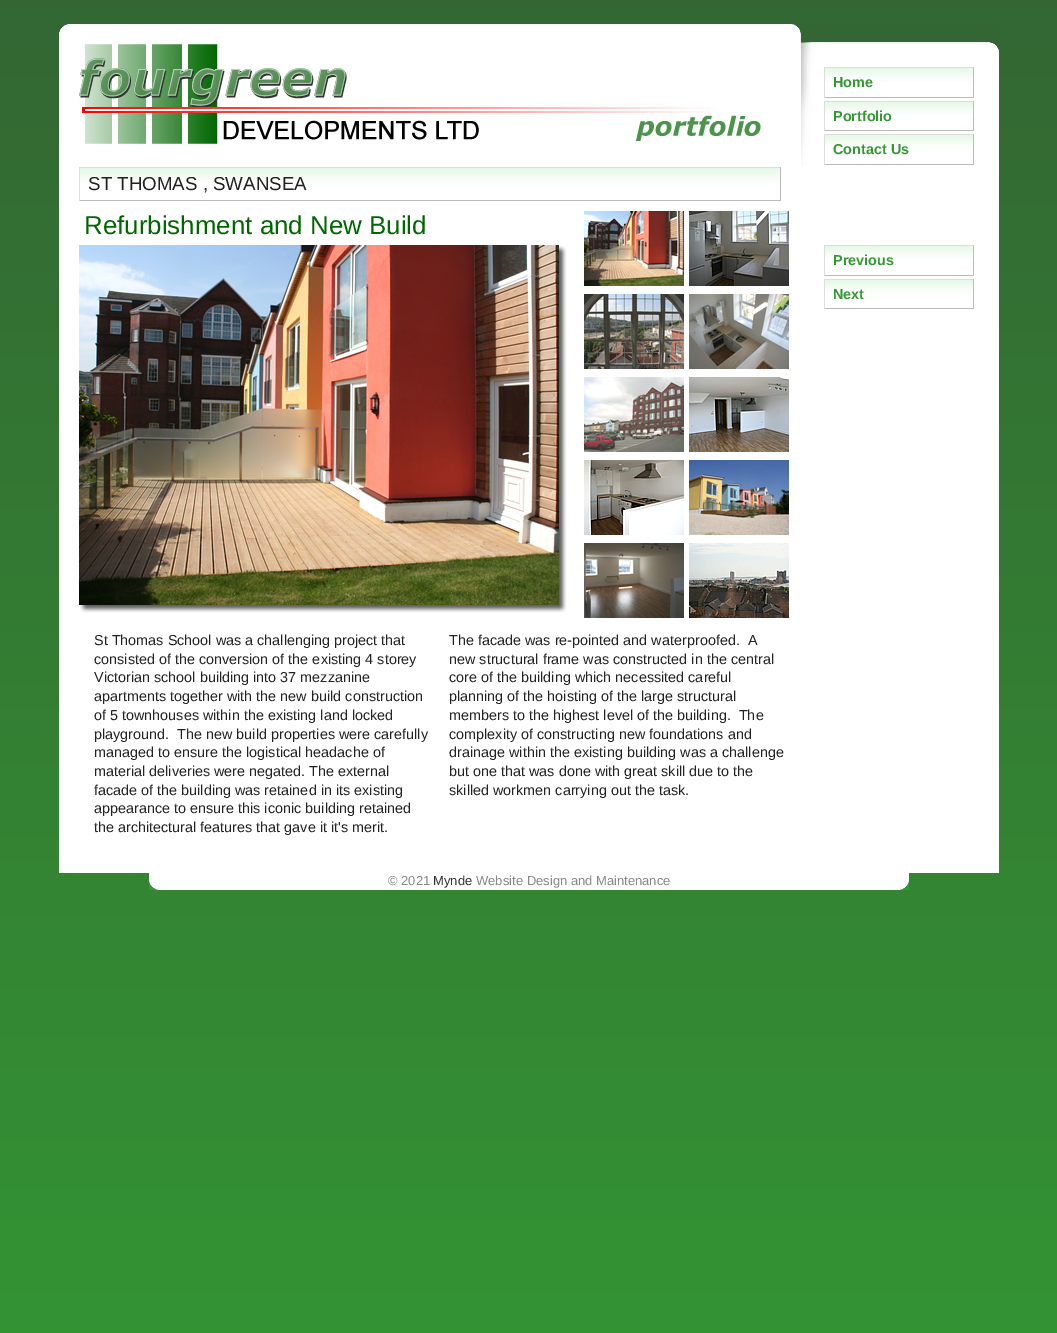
%!PS-Adobe-3.0
%%BoundingBox: 0 0 1057 1333
%%LanguageLevel: 3
%%Pages: 1
%%EndComments
%%BeginProlog
/fn { [ exch dup neg 0 0 3 -1 roll 0 0 ] selectfont } def
/tx { moveto show } def
/bx { rectfill } def
/im { 5 dict begin { /h /w /y /x /name } { exch def } forall
  gsave x y translate w h scale
  w h 8 [w 0 0 h 0 0] name (r) file false 3 colorimage grestore end } def
%%EndProlog
%%BeginSetup
<< /PageSize [1057 1333] >> setpagedevice
%%EndSetup
%%Page: 1 1
0 1333 translate 1 -1 scale
4 setmiterlimit
1 setgray
0 0 1057 1333 bx
(image0.raw) 0 0 1057 1333 im
59 166 940 707 bx
(image1.raw) 59 24 940 142 im
(image2.raw) 79 44 683 100 im
(image3.raw) 80 168 700 32 im
0.867 setgray
79 167 702 1 bx
0.733 setgray
780 167 1 34 bx
79 200 702 1 bx
0.867 setgray
79 167 1 34 bx
/LiberationSans-Regular 18.75 fn
0.133 setgray
(ST THOMAS , SWANSEA) 88 190 tx
/LiberationSans-Regular 25.9 fn
0 0.4 0 setrgbcolor
(Refurbishment and New Build) 84 234 tx
(image4.raw) 584 211 100 75 im
(image5.raw) 584 294 100 75 im
(image6.raw) 584 377 100 75 im
(image7.raw) 584 460 100 75 im
(image8.raw) 584 543 100 75 im
(image9.raw) 689 211 100 75 im
(image10.raw) 689 294 100 75 im
(image11.raw) 689 377 100 75 im
(image12.raw) 689 460 100 75 im
(image13.raw) 689 543 100 75 im
(image14.raw) 79 245 488 368 im
/LiberationSans-Regular 14.4 fn
0.133 setgray
(St Thomas School was a challenging project that) 94 645 tx
(consisted of the conversion of the existing 4 storey) 94 664 tx
(Victorian school building into 37 mezzanine) 94 682 tx
(apartments together with the new build construction) 94 701 tx
(of 5 townhouses within the existing land locked) 94 720 tx
(playground.  The new build properties were carefully) 94 739 tx
(managed to ensure the logistical headache of) 94 757 tx
(material deliveries were negated. The external) 94 776 tx
(facade of the building was retained in its existing) 94 795 tx
(appearance to ensure this iconic building retained) 94 813 tx
(the architectural features that gave it it's merit.) 94 832 tx
(The facade was re-pointed and waterproofed.  A) 449 645 tx
(new structural frame was constructed in the central) 449 664 tx
(core of the building which necessited careful) 449 682 tx
(planning of the hoisting of the large structural) 449 701 tx
(members to the highest level of the building.  The) 449 720 tx
(complexity of constructing new foundations and) 449 739 tx
(drainage within the existing building was a challenge) 449 757 tx
(but one that was done with great skill due to the) 449 776 tx
(skilled workmen carrying out the task.) 449 795 tx
(image15.raw) 825 68 148 29 im
0.867 setgray
824 67 150 1 bx
0.733 setgray
973 67 1 31 bx
824 97 150 1 bx
0.867 setgray
824 67 1 31 bx
/LiberationSans-Bold 14.4 fn
0.2 0.6 0.2 setrgbcolor
(Home) 833 87 tx
(image16.raw) 825 102 148 28 im
0.867 setgray
824 101 150 1 bx
0.733 setgray
973 101 1 30 bx
824 130 150 1 bx
0.867 setgray
824 101 1 30 bx
0.2 0.6 0.2 setrgbcolor
(Portfolio) 833 121 tx
(image15.raw) 825 135 148 29 im
0.867 setgray
824 134 150 1 bx
0.733 setgray
973 134 1 31 bx
824 164 150 1 bx
0.867 setgray
824 134 1 31 bx
0.2 0.6 0.2 setrgbcolor
(Contact Us) 833 154 tx
(image15.raw) 825 246 148 29 im
0.867 setgray
824 245 150 1 bx
0.733 setgray
973 245 1 31 bx
824 275 150 1 bx
0.867 setgray
824 245 1 31 bx
0.2 0.6 0.2 setrgbcolor
(Previous) 833 265 tx
(image16.raw) 825 280 148 28 im
0.867 setgray
824 279 150 1 bx
0.733 setgray
973 279 1 30 bx
824 308 150 1 bx
0.867 setgray
824 279 1 30 bx
0.2 0.6 0.2 setrgbcolor
(Next) 833 299 tx
1 setgray
149 873 760 7 bx
(image17.raw) 149 880 760 10 im
/LiberationSans-Regular 13 fn
0.533 setgray
(© 2021) 388 885 tx
0.2 setgray
(Mynde) 433 885 tx
0.533 setgray
(Website Design and Maintenance) 476 885 tx
showpage
%%EOF
